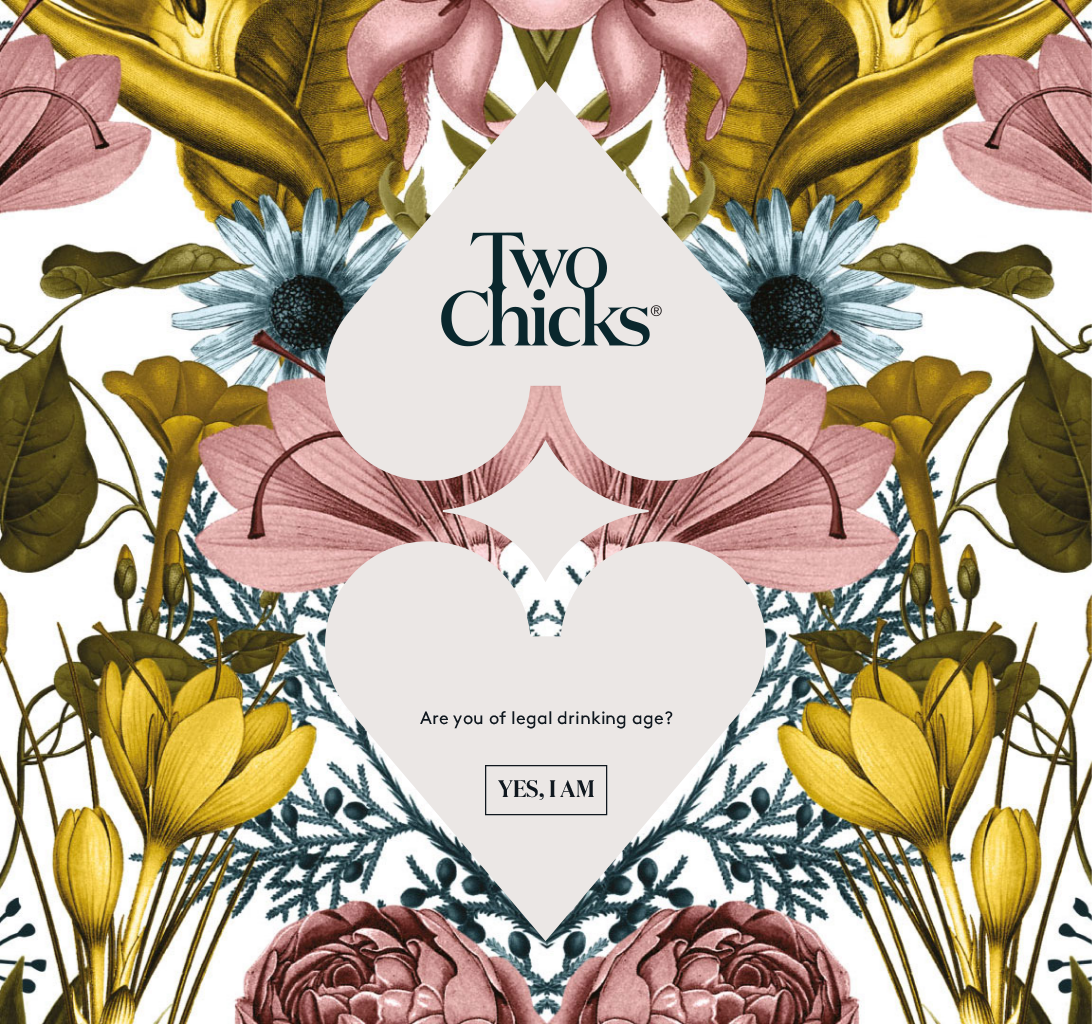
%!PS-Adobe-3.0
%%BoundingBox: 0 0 1092 1024
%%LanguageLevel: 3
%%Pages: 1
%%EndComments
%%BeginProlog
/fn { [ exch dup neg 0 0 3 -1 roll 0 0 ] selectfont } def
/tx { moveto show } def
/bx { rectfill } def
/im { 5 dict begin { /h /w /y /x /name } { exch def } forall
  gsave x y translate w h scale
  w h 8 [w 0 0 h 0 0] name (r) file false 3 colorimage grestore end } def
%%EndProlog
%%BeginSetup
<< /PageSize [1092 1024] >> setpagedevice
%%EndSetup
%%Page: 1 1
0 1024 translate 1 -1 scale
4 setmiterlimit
1 setgray
0 0 1092 1024 bx
(image0.raw) 0 0 1092 1024 im
(image1.raw) 325 81 442 860 im
/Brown-Regular 18 fn
0.063 0.094 0.122 setrgbcolor
(Are you of legal drinking age?) 420 724 tx
485.5 765.5 121 49 rectstroke
/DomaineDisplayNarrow-SemiBold 24 fn
(YES, I AM) 498 797 tx
showpage
%%EOF
